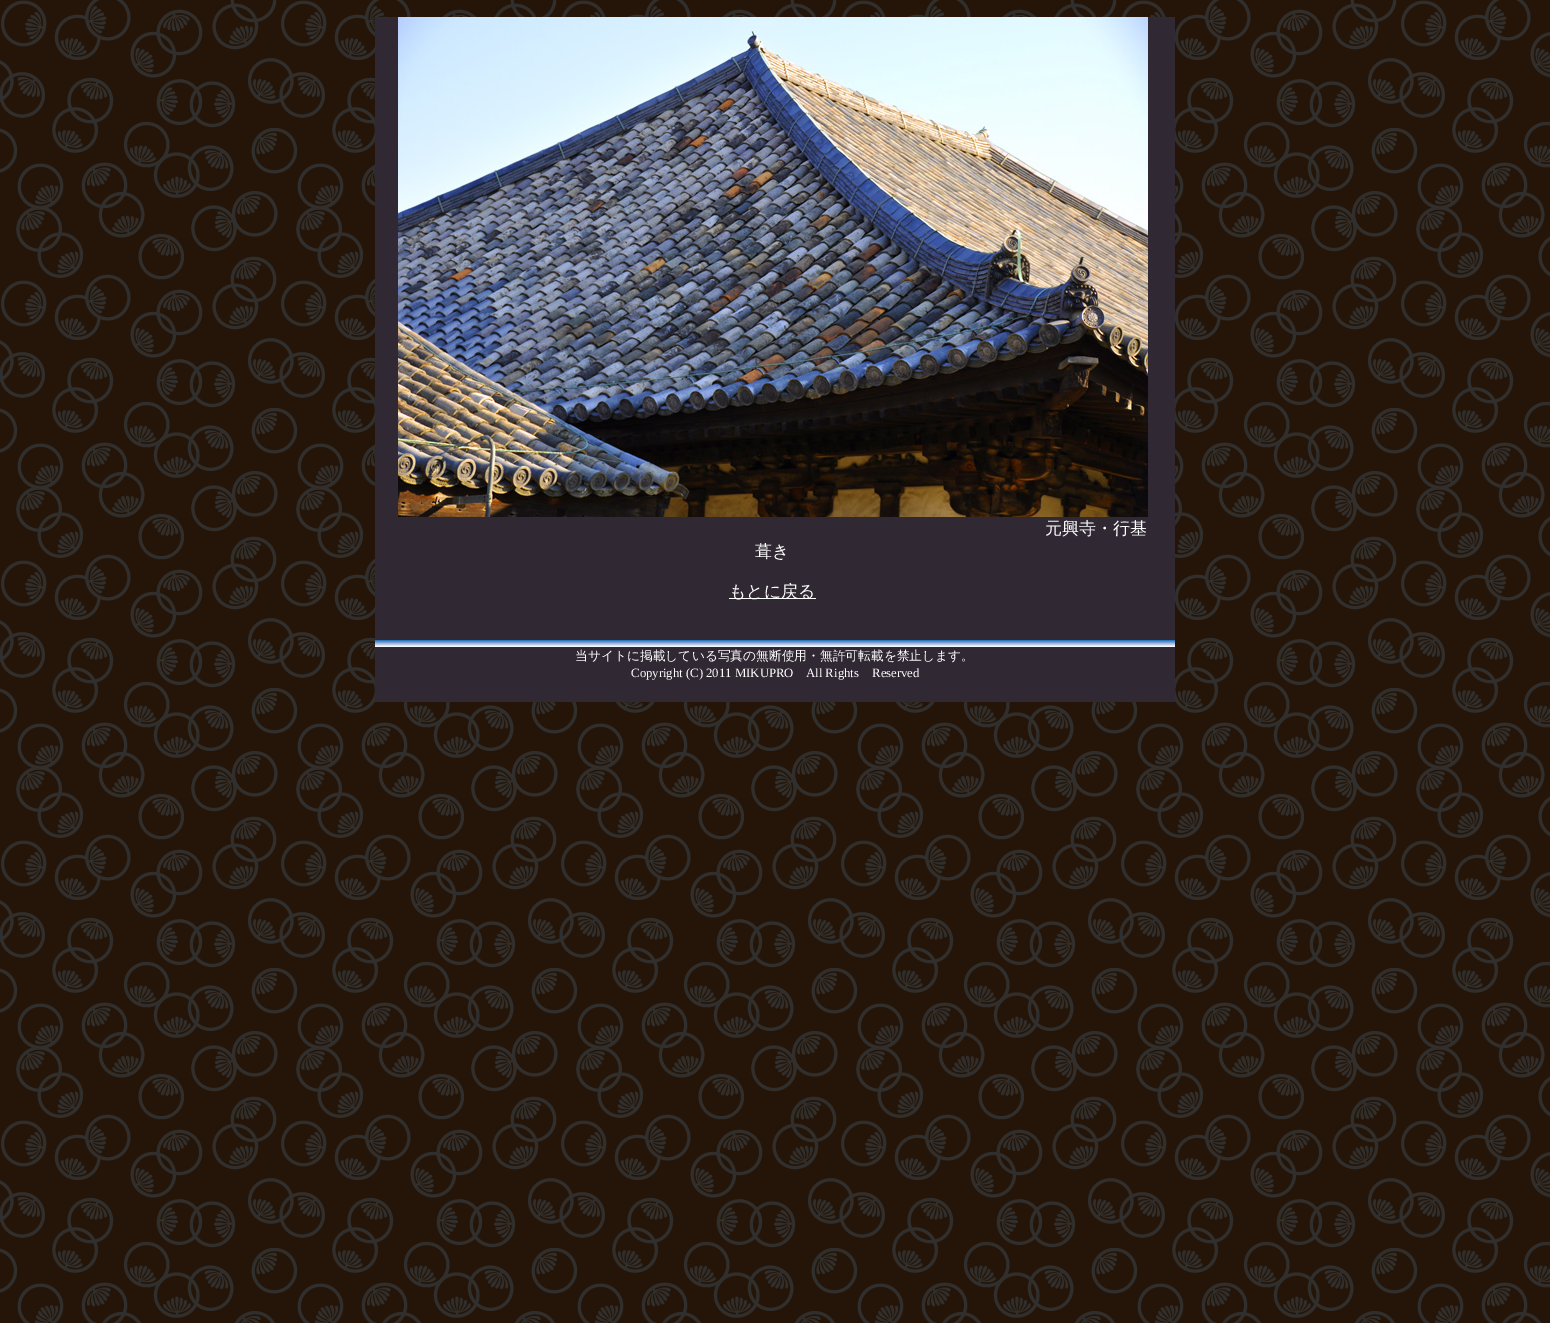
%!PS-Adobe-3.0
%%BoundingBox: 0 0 1550 1323
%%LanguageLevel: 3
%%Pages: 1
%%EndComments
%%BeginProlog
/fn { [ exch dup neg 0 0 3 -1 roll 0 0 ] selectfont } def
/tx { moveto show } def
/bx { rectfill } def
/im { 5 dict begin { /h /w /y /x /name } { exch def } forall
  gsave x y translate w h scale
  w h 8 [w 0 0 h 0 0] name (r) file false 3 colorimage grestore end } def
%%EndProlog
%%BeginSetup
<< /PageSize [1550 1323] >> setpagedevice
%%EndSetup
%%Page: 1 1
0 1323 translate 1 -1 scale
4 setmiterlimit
1 setgray
0 0 1550 1323 bx
(image0.raw) 0 0 1550 1323 im
0.188 0.157 0.2 setrgbcolor
375 17 800 685 bx
(image1.raw) 398 17 750 500 im
/WenQuanYiZenHei-Medium 17 fn
1 setgray
(元興寺・行基) 1045 534 tx
(葺き) 755 557 tx
729 598 87 1 bx
(もとに戻る) 729 597 tx
(image2.raw) 375 640 800 7 im
/WenQuanYiZenHei-Medium 12.75 fn
(当サイトに掲載している写真の無断使用・無許可転載を禁止します。) 575 660 tx
/LiberationSerif-Regular 12.75 fn
(Copyright \(C\) 2011 MIKUPRO) 631 677 tx
(All Rights) 806 677 tx
(Reserved) 872 677 tx
showpage
%%EOF
